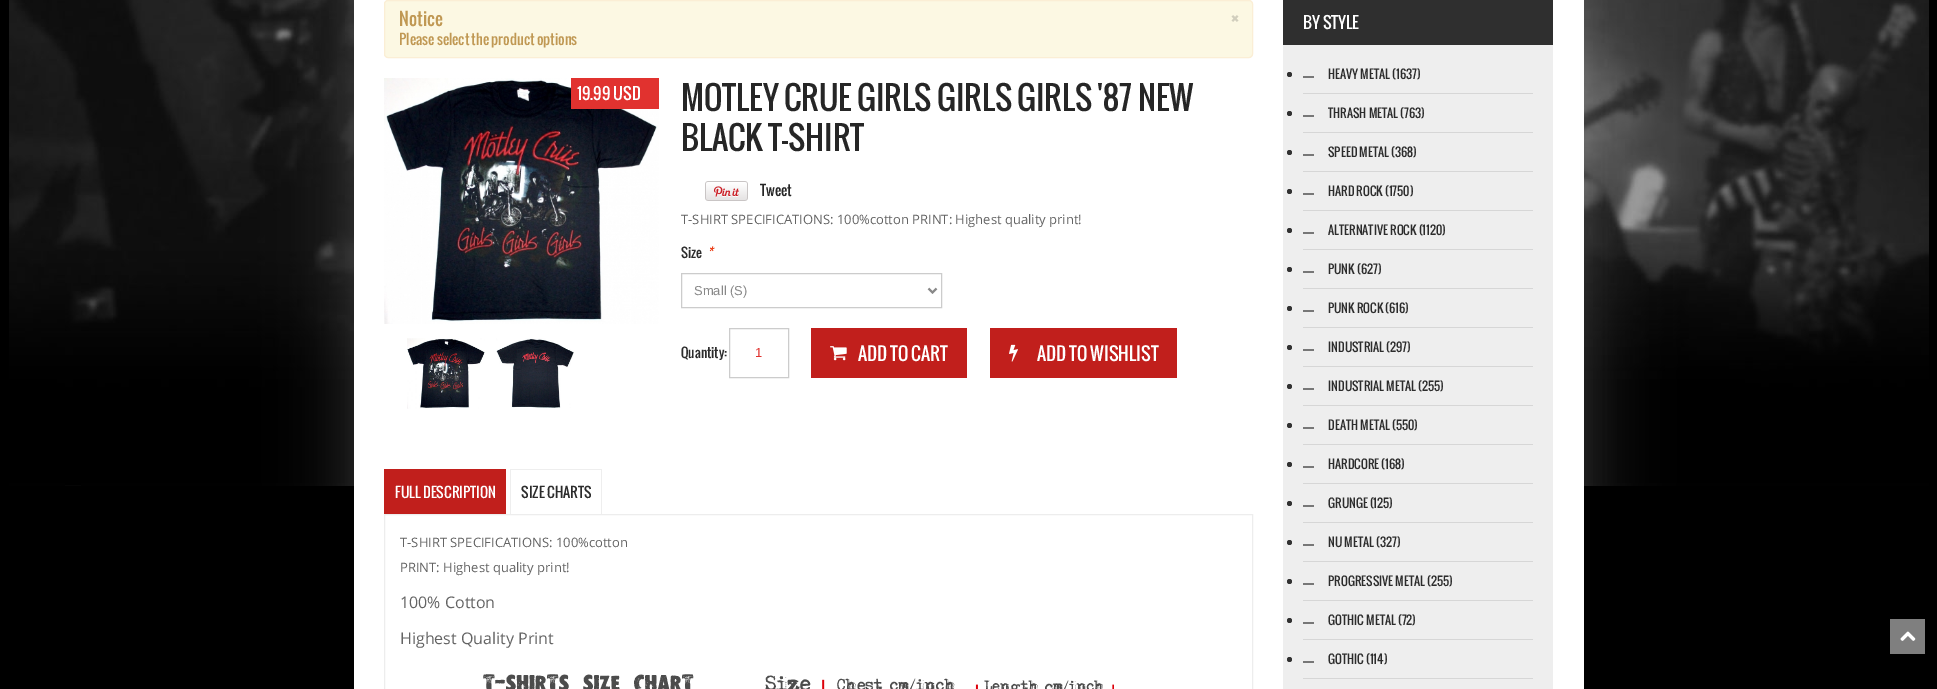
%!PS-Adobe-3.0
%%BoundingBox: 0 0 1937 689
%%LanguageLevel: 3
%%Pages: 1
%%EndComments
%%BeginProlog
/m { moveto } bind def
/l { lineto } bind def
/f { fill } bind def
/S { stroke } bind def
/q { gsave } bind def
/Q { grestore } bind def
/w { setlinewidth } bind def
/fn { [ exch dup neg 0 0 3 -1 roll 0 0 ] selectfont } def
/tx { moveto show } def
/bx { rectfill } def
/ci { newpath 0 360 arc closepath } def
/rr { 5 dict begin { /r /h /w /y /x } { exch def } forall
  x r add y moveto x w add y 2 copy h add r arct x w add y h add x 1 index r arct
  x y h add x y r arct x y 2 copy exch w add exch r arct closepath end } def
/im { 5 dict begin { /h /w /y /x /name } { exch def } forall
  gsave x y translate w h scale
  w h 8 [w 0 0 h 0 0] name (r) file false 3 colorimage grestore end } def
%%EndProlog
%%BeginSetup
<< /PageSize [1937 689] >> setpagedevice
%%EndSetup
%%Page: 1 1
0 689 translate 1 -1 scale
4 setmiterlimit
0 setgray
0 0 1937 689 bx
(image0.raw) 9 0 1920 486 im
1 setgray
354 0 1230 689 bx
0.988 0.973 0.89 setrgbcolor
384.5 0.5 868 57 3.5 rr q f Q
0.984 0.933 0.835 setrgbcolor
S
/Oswald-Regular 17.5 fn
0.753 0.596 0.325 setrgbcolor
(Notice) 399 26 tx
/Oswald-Bold 20 fn
0.82 0.808 0.741 setrgbcolor
(×) 1231 25 tx
/Oswald-Regular 14 fn
0.753 0.596 0.325 setrgbcolor
(Please select the product options) 399 45 tx
(image1.raw) 384 78 275 246 im
0.882 0.196 0.184 setrgbcolor
571 78 88 31 bx
/Oswald-Regular 16 fn
1 setgray
(19.99 USD) 577 100 tx
(image2.raw) 407 338 78 71 im
(image3.raw) 496 338 78 70 im
/Oswald-Regular 32 fn
0.149 setgray
(MOTLEY CRUE GIRLS GIRLS GIRLS '87 NEW) 681 111 tx
(BLACK T-SHIRT) 681 151 tx
(image4.raw) 705 181 43 20 im
/Oswald-Regular 14 fn
(Tweet) 760 196 tx
/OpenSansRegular-Regular 13 fn
0.392 setgray
(T-SHIRT SPECIFICATIONS: 100%cotton PRINT: Highest quality print!) 681 224 tx
/Oswald-Regular 13 fn
0.173 setgray
(Size) 681 258 tx
/Oswald-Italic 13 fn
0.922 0.204 0.039 setrgbcolor
(*) 707 257 tx
0.8 setgray
681.5 273.5 260 34 rectstroke
0.533 setgray
2 w
928.5 288.5 m 932.5 292.5 l 936.5 288.5 l S
/LiberationSans-Regular 13 fn
(Small \(S\)) 694 295 tx
/Oswald-Regular 13 fn
0.173 setgray
(Quantity:) 681 358 tx
0.8 setgray
1 w
729.5 328.5 59 49 rectstroke
/LiberationSans-Regular 13 fn
0.882 0.196 0.184 setrgbcolor
(1) 755 357 tx
0.757 0.122 0.11 setrgbcolor
811 328 156 50 bx
(image5.raw) 830 346 17 15 im
/Oswald-Regular 18 fn
1 setgray
(ADD TO CART) 858 361 tx
0.757 0.122 0.11 setrgbcolor
990 328 187 50 bx
(image6.raw) 1009 344 9 18 im
1 setgray
(ADD TO WISHLIST) 1037 361 tx
0.757 0.122 0.11 setrgbcolor
384 469 122 45 bx
/Oswald-Regular 14 fn
1 setgray
(FULL DESCRIPTION) 395 498 tx
0.933 setgray
510 469 92 1 bx
601 469 1 45 bx
510 469 1 45 bx
0.173 setgray
(SIZE CHARTS) 521 498 tx
0.929 setgray
384.5 514.5 868 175 rectstroke
/OpenSansRegular-Regular 13 fn
0.392 setgray
(T-SHIRT SPECIFICATIONS: 100%cotton) 400 547 tx
(PRINT: Highest quality print!) 400 572 tx
/OpenSansRegular-Regular 16 fn
(100% Cotton) 400 608 tx
(Highest Quality Print) 400 644 tx
(image7.raw) 483 674 631 15 im
0.184 setgray
1283 0 270 45 bx
/Oswald-Regular 16 fn
1 setgray
(BY STYLE) 1303 29 tx
0.933 setgray
1283 45 270 644 bx
0.192 setgray
1289.5 74.5 2.5 ci f
0.467 setgray
1303 76 11 2 bx
0.839 setgray
1303 93 230 1 bx
/Oswald-Regular 12 fn
0.173 setgray
(HEAVY METAL \(1637\)) 1328 79 tx
0.192 setgray
1289.5 113.5 2.5 ci f
0.467 setgray
1303 115 11 2 bx
0.839 setgray
1303 132 230 1 bx
0.173 setgray
(THRASH METAL \(763\)) 1328 118 tx
0.192 setgray
1289.5 152.5 2.5 ci f
0.467 setgray
1303 154 11 2 bx
0.839 setgray
1303 171 230 1 bx
0.173 setgray
(SPEED METAL \(368\)) 1328 157 tx
0.192 setgray
1289.5 191.5 2.5 ci f
0.467 setgray
1303 193 11 2 bx
0.839 setgray
1303 210 230 1 bx
0.173 setgray
(HARD ROCK \(1750\)) 1328 196 tx
0.192 setgray
1289.5 230.5 2.5 ci f
0.467 setgray
1303 232 11 2 bx
0.839 setgray
1303 249 230 1 bx
0.173 setgray
(ALTERNATIVE ROCK \(1120\)) 1328 235 tx
0.192 setgray
1289.5 269.5 2.5 ci f
0.467 setgray
1303 271 11 2 bx
0.839 setgray
1303 288 230 1 bx
0.173 setgray
(PUNK \(627\)) 1328 274 tx
0.192 setgray
1289.5 308.5 2.5 ci f
0.467 setgray
1303 310 11 2 bx
0.839 setgray
1303 327 230 1 bx
0.173 setgray
(PUNK ROCK \(616\)) 1328 313 tx
0.192 setgray
1289.5 347.5 2.5 ci f
0.467 setgray
1303 349 11 2 bx
0.839 setgray
1303 366 230 1 bx
0.173 setgray
(INDUSTRIAL \(297\)) 1328 352 tx
0.192 setgray
1289.5 386.5 2.5 ci f
0.467 setgray
1303 388 11 2 bx
0.839 setgray
1303 405 230 1 bx
0.173 setgray
(INDUSTRIAL METAL \(255\)) 1328 391 tx
0.192 setgray
1289.5 425.5 2.5 ci f
0.467 setgray
1303 427 11 2 bx
0.839 setgray
1303 444 230 1 bx
0.173 setgray
(DEATH METAL \(550\)) 1328 430 tx
0.192 setgray
1289.5 464.5 2.5 ci f
0.467 setgray
1303 466 11 2 bx
0.839 setgray
1303 483 230 1 bx
0.173 setgray
(HARDCORE \(168\)) 1328 469 tx
0.192 setgray
1289.5 503.5 2.5 ci f
0.467 setgray
1303 505 11 2 bx
0.839 setgray
1303 522 230 1 bx
0.173 setgray
(GRUNGE \(125\)) 1328 508 tx
0.192 setgray
1289.5 542.5 2.5 ci f
0.467 setgray
1303 544 11 2 bx
0.839 setgray
1303 561 230 1 bx
0.173 setgray
(NU METAL \(327\)) 1328 547 tx
0.192 setgray
1289.5 581.5 2.5 ci f
0.467 setgray
1303 583 11 2 bx
0.839 setgray
1303 600 230 1 bx
0.173 setgray
(PROGRESSIVE METAL \(255\)) 1328 586 tx
0.192 setgray
1289.5 620.5 2.5 ci f
0.467 setgray
1303 622 11 2 bx
0.839 setgray
1303 639 230 1 bx
0.173 setgray
(GOTHIC METAL \(72\)) 1328 625 tx
0.192 setgray
1289.5 659.5 2.5 ci f
0.467 setgray
1303 661 11 2 bx
0.839 setgray
1303 678 230 1 bx
0.173 setgray
(GOTHIC \(114\)) 1328 664 tx
0.498 setgray
1890 619 35 35 bx
(image8.raw) 1900 631 16 10 im
showpage
%%EOF
